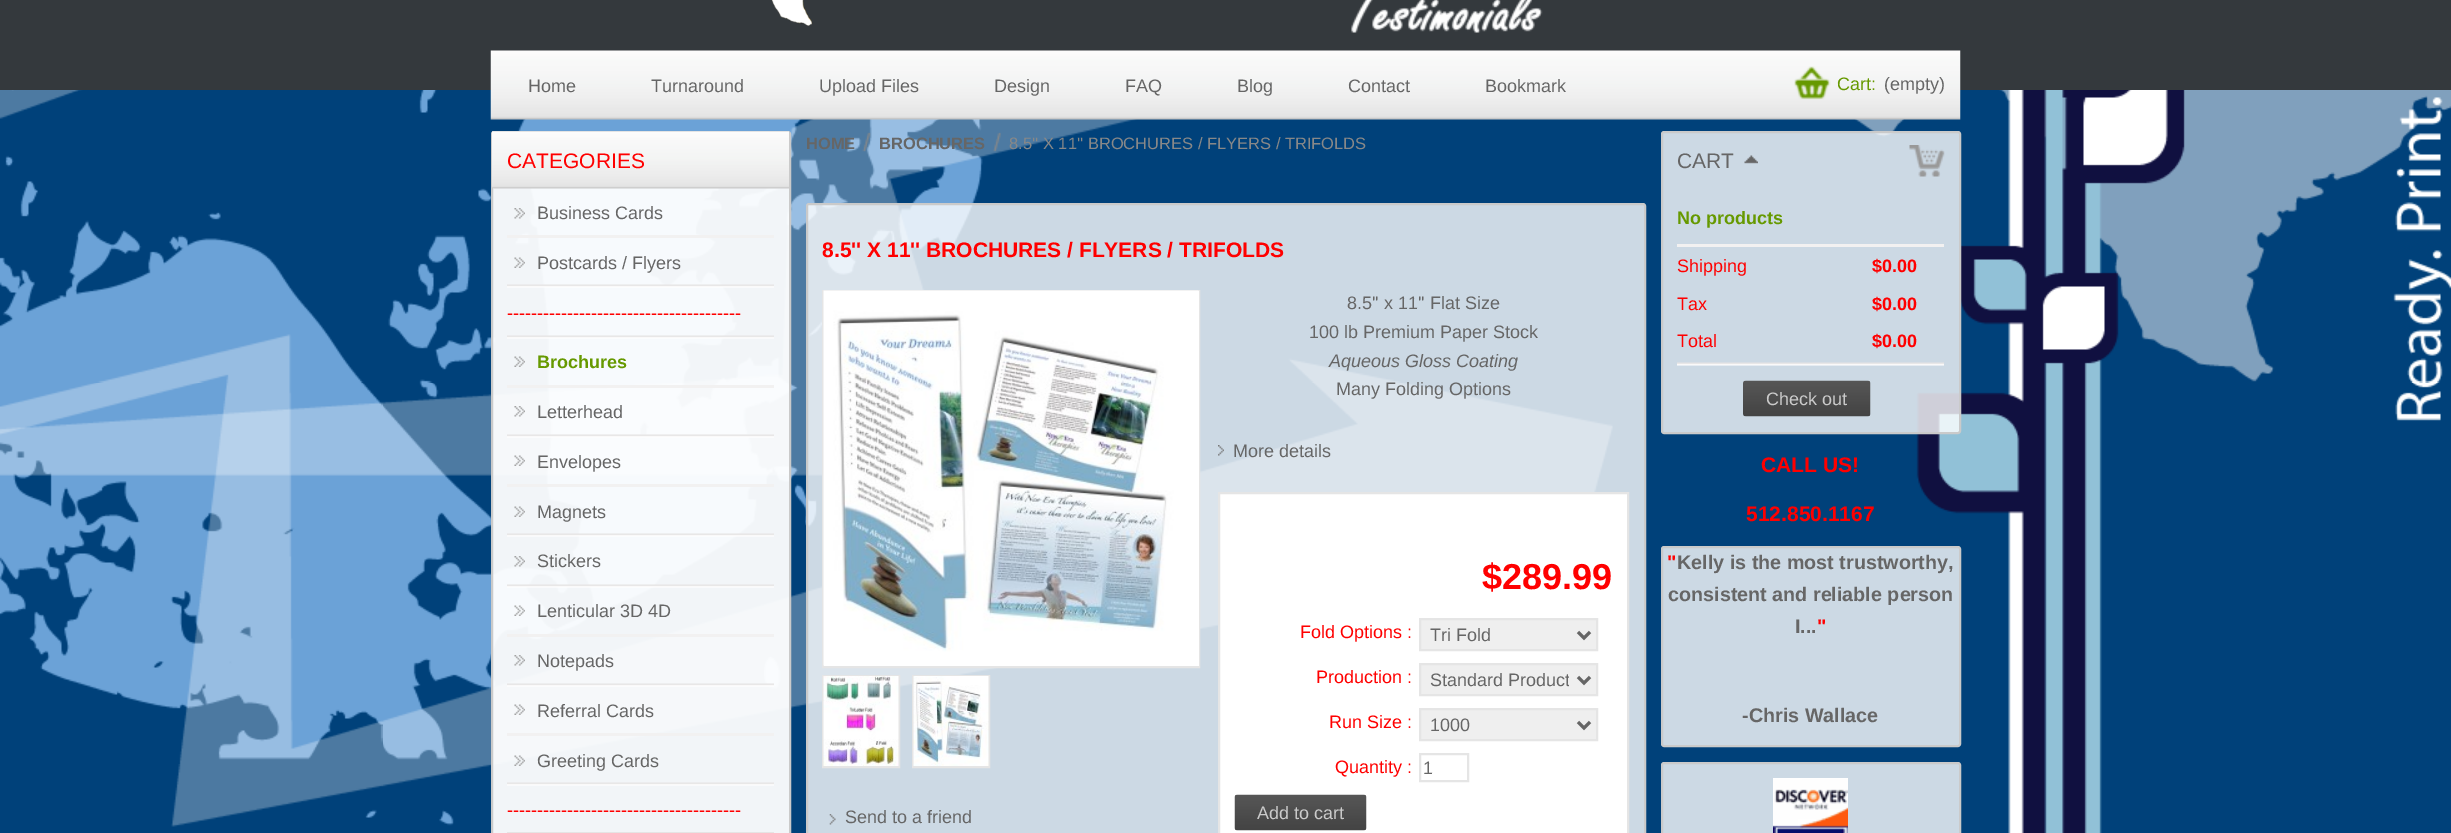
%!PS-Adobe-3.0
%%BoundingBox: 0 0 2451 833
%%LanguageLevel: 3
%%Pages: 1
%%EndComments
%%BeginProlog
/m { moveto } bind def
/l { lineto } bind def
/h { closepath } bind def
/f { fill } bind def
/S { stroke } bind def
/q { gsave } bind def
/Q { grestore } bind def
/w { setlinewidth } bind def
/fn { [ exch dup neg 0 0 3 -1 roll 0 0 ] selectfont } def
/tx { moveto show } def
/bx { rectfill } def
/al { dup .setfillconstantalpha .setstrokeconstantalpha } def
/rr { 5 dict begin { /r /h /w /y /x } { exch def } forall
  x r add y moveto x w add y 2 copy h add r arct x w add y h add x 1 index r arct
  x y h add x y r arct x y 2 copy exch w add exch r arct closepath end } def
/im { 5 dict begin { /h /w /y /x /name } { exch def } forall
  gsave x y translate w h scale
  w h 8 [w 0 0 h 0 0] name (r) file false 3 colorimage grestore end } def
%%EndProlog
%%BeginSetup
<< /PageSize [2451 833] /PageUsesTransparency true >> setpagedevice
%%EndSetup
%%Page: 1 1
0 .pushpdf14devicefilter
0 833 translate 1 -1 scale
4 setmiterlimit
1 setgray
0 0 2451 833 bx
(image0.raw) 0 90 2451 743 im
0.204 0.224 0.239 setrgbcolor
0 0 2451 90 bx
(image1.raw) 771 0 42 26 im
(image2.raw) 1351 0 192 33 im
(image3.raw) 490 50 1471 70 im
/LiberationSans-Regular 18 fn
0.4 setgray
(Home) 528 92 tx
(Turnaround) 651 92 tx
(Upload Files) 819 92 tx
(Design) 994 92 tx
(FAQ) 1125 92 tx
(Blog) 1237 92 tx
(Contact) 1348 92 tx
(Bookmark) 1485 92 tx
(image4.raw) 1794 66 37 34 im
0.4 0.6 0 setrgbcolor
(Cart:) 1837 90 tx
0.4 setgray
(\(empty\)) 1884 90 tx
0.95 al
1 setgray
492 132 298 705 2 rr f
1 al
0.792 setgray
2 w
492 132 298 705 2 rr S
(image5.raw) 492 131 297 58 im
/LiberationSans-Regular 21 fn
1 0 0 setrgbcolor
(CATEGORIES) 507 168 tx
0.949 0.945 0.945 setrgbcolor
507 235 267 3 bx
(image6.raw) 514 208 11 11 im
/LiberationSans-Regular 18 fn
0.4 setgray
(Business Cards) 537 219 tx
(image7.raw) 507 284 267 4 im
(image8.raw) 514 257 11 11 im
(Postcards / Flyers) 537 269 tx
(image9.raw) 507 335 267 4 im
1 0 0 setrgbcolor
(---------------------------------------) 507 319 tx
0.949 0.945 0.945 setrgbcolor
507 385 267 3 bx
(image8.raw) 514 356 11 11 im
/LiberationSans-Bold 18 fn
0.4 0.6 0 setrgbcolor
(Brochures) 537 368 tx
(image10.raw) 507 434 267 4 im
(image11.raw) 514 406 11 11 im
/LiberationSans-Regular 18 fn
0.4 setgray
(Letterhead) 537 418 tx
0.949 0.945 0.945 setrgbcolor
507 484 267 3 bx
(image12.raw) 514 455 11 11 im
0.4 setgray
(Envelopes) 537 468 tx
(image13.raw) 507 533 267 4 im
(image8.raw) 514 506 11 11 im
(Magnets) 537 518 tx
(image14.raw) 507 584 267 4 im
(image15.raw) 514 556 11 11 im
(Stickers) 537 567 tx
0.949 0.945 0.945 setrgbcolor
507 634 267 3 bx
(image16.raw) 514 605 11 11 im
0.4 setgray
(Lenticular 3D 4D) 537 617 tx
(image17.raw) 507 683 267 4 im
(image6.raw) 514 655 11 11 im
(Notepads) 537 667 tx
0.949 0.945 0.945 setrgbcolor
507 733 267 3 bx
(image18.raw) 514 704 11 11 im
0.4 setgray
(Referral Cards) 537 717 tx
(image19.raw) 507 782 267 4 im
(image20.raw) 514 755 11 11 im
(Greeting Cards) 537 767 tx
0.898 0.894 0.894 setrgbcolor
507 832 267 1 bx
1 0 0 setrgbcolor
(---------------------------------------) 507 816 tx
/LiberationSans-Bold 16.5 fn
0.4 setgray
(HOME) 806 149 tx
(image21.raw) 862 132 9 20 im
(BROCHURES) 879 149 tx
(image22.raw) 993 132 8 20 im
/LiberationSans-Regular 16.5 fn
0.533 setgray
(8.5'' X 11'' BROCHURES / FLYERS / TRIFOLDS) 1009 149 tx
0.8 al
1 setgray
807 204 838 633 2 rr f
1 al
0.792 setgray
807 204 838 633 2 rr S
/LiberationSans-Bold 21 fn
1 0 0 setrgbcolor
(8.5'' X 11'' BROCHURES / FLYERS / TRIFOLDS) 822 257 tx
0.898 setgray
823 291 376 376 rectstroke
1 setgray
824 291 375 375 bx
(image23.raw) 823 290 376 376 im
0.898 setgray
823 676 76 91 rectstroke
(image24.raw) 823 676 76 90 im
913 676 76 91 rectstroke
(image25.raw) 913 676 76 90 im
(image26.raw) 829 814 7 11 im
/LiberationSans-Regular 18 fn
0.4 setgray
(Send to a friend) 845 823 tx
(8.5'' x 11'' Flat Size) 1347 309 tx
(100 lb Premium Paper Stock) 1309 338 tx
/LiberationSans-Italic 18 fn
(Aqueous Gloss Coating) 1329 367 tx
/LiberationSans-Regular 18 fn
(Many Folding Options) 1336 395 tx
(image27.raw) 1218 445 6 11 im
(More details) 1233 457 tx
1 setgray
1219 493 m 1628 493 l 1628 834 l 1219 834 l h q f Q
0.898 setgray
S
/LiberationSans-Bold 36 fn
1 0 0 setrgbcolor
($289.99) 1482 589 tx
/LiberationSans-Regular 18 fn
(Fold Options :) 1300 638 tx
0.937 setgray
1420 619 m 1597 619 l 1597 650 l 1420 650 l h q f Q
0.898 setgray
S
0.4 setgray
3 w
1578 632 m 1584 638 l 1590 632 l S
(Tri Fold) 1430 641 tx
1 0 0 setrgbcolor
(Production :) 1316 683 tx
0.937 setgray
1420 664 m 1597 664 l 1597 695 l 1420 695 l h q f Q
0.898 setgray
2 w
S
0.4 setgray
3 w
1578 677 m 1584 683 l 1590 677 l S
q
1430 668 139 24 rectclip
(Standard Product) 1430 686 tx
Q
1 0 0 setrgbcolor
(Run Size :) 1329 728 tx
0.937 setgray
1420 709 m 1597 709 l 1597 740 l 1420 740 l h q f Q
0.898 setgray
2 w
S
0.4 setgray
3 w
1578 722 m 1584 728 l 1590 722 l S
(1000) 1430 731 tx
1 0 0 setrgbcolor
(Quantity :) 1335 773 tx
0.898 setgray
2 w
1420 754 48 27 rectstroke
0.4 setgray
(1) 1423 774 tx
(image28.raw) 1234 794 133 37 im
0.792 setgray
(Add to cart) 1257 819 tx
0.8 al
1 setgray
1662 132 298 301 2 rr f
1 al
0.792 setgray
1662 132 298 301 2 rr S
(image29.raw) 1909 145 36 32 im
/LiberationSans-Regular 21 fn
0.4 setgray
(CART) 1677 168 tx
(image30.raw) 1744 155 14 9 im
0.949 0.945 0.945 setrgbcolor
1677 244 267 3 bx
/LiberationSans-Bold 18 fn
0.4 0.6 0 setrgbcolor
(No products) 1677 224 tx
(image31.raw) 1677 362 267 4 im
/LiberationSans-Regular 18 fn
1 0 0 setrgbcolor
(Shipping) 1677 272 tx
/LiberationSans-Bold 18 fn
($0.00) 1872 272 tx
/LiberationSans-Regular 18 fn
(Tax) 1677 310 tx
/LiberationSans-Bold 18 fn
($0.00) 1872 310 tx
/LiberationSans-Regular 18 fn
(Total) 1677 347 tx
/LiberationSans-Bold 18 fn
($0.00) 1872 347 tx
(image32.raw) 1743 380 128 37 im
/LiberationSans-Regular 18 fn
0.792 setgray
(Check out) 1766 405 tx
/LiberationSans-Bold 21 fn
1 0 0 setrgbcolor
(CALL US!) 1761 472 tx
(512.850.1167) 1746 521 tx
0.8 0.851 0.894 setrgbcolor
1662 547 298 199 2 rr q f Q
0.792 setgray
S
/LiberationSans-Bold 19.75 fn
1 0 0 setrgbcolor
(") 1667 569 tx
0.4 setgray
(Kelly is the most trustworthy,) 1677 569 tx
(consistent and reliable person) 1668 601 tx
(I...) 1795 633 tx
1 0 0 setrgbcolor
(") 1817 633 tx
0.4 setgray
(-Chris Wallace) 1742 722 tx
0.8 0.851 0.894 setrgbcolor
1662 763 298 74 2 rr q f Q
0.792 setgray
S
(image33.raw) 1773 778 75 55 im
.poppdf14devicefilter showpage
%%EOF
